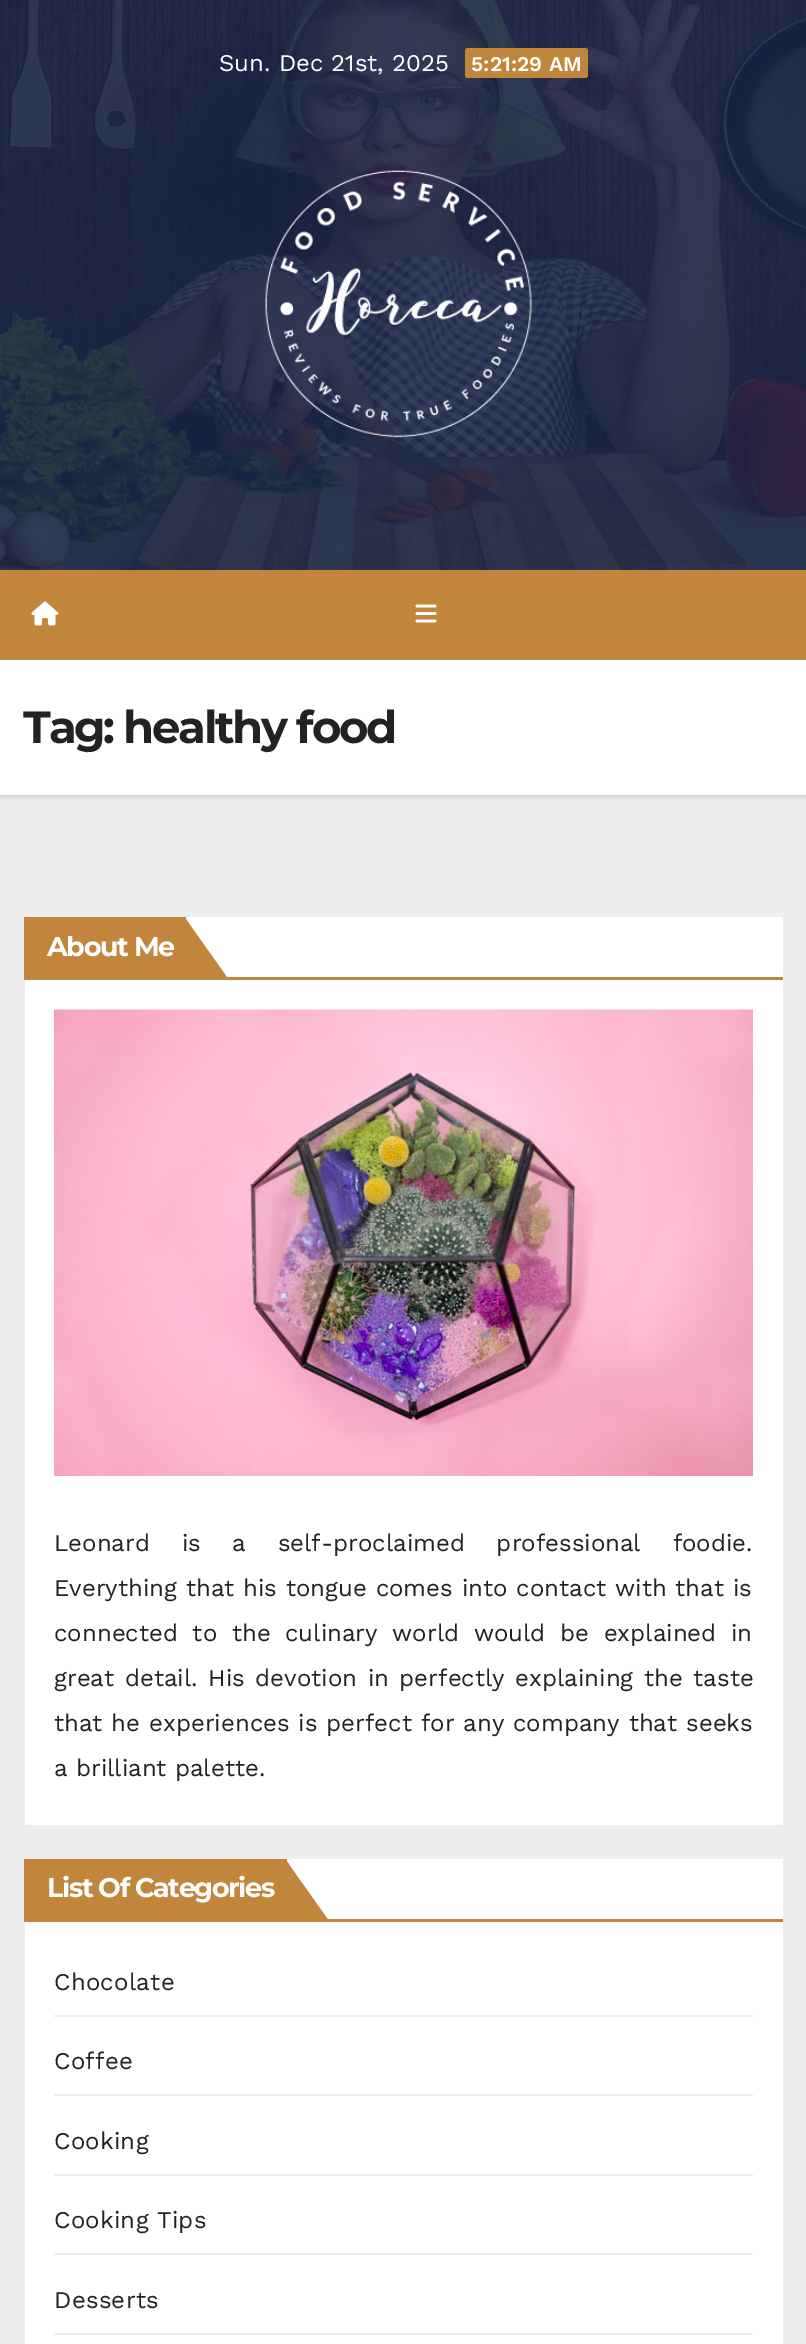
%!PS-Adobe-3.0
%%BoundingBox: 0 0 806 2344
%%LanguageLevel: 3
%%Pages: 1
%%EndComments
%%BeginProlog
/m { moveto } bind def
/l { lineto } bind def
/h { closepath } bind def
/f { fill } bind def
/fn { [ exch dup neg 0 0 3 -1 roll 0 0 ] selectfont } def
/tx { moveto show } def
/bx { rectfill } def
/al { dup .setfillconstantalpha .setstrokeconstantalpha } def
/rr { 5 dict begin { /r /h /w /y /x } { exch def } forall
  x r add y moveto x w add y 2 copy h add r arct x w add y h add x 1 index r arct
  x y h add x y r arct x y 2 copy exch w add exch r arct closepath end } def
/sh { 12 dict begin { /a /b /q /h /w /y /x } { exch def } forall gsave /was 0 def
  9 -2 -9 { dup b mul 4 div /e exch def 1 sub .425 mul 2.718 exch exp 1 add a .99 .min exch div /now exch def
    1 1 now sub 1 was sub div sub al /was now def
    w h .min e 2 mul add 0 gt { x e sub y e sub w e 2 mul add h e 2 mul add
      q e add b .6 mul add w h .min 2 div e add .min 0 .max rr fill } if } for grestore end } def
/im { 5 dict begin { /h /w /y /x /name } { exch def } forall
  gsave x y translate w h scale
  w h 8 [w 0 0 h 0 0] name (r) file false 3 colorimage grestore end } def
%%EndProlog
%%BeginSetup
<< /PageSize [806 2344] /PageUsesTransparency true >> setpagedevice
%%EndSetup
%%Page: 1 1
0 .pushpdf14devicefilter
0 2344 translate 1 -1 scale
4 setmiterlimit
0.933 setgray
0 0 806 2344 bx
(image0.raw) 0 0 806 570 im
/WorkSans-Regular 24 fn
1 setgray
(Sun. Dec 21st, 2025) 219 71 tx
0.757 0.522 0.231 setrgbcolor
465 48 123 30 3 rr f
/WorkSans-SemiBold 21 fn
1 setgray
(5:21:29 AM) 471 71 tx
(image1.raw) 265 170 267 268 im
0 setgray
0 662 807 135 0 2 0.15 sh
0.757 0.522 0.231 setrgbcolor
0 570 806 90 bx
(image2.raw) 31 601 28 25 im
(image3.raw) 415 604 22 19 im
1 setgray
0 660 806 135 bx
/Montserrat-Bold 45 fn
0.133 setgray
23 743 m -2.25 0 (Tag: healthy food) ashow
1 setgray
25 917 758 908 bx
0.757 0.522 0.231 setrgbcolor
24 977 759 3 bx
24 917 162 60 bx
/Montserrat-Bold 27 fn
1 setgray
47 956 m -1.4 0 (About Me) ashow
0.757 0.522 0.231 setrgbcolor
185 918 m 185 980 l 229 980 l h f
189 924 m 189 975 l 184 980 l 184 917 l h f
(image4.raw) 54 1009 699 467 im
/WorkSans-Regular 24 fn
0.133 setgray
54 1551 m 23.5 0 32 (Leonard is a self-proclaimed professional foodie.) widthshow
54 1596 m 0.75 0 32 (Everything that his tongue comes into contact with that is) widthshow
54 1641 m 6.5 0 32 (connected to the culinary world would be explained in) widthshow
54 1686 m 2.5 0 32 (great detail. His devotion in perfectly explaining the taste) widthshow
54 1731 m 0.75 0 32 (that he experiences is perfect for any company that seeks) widthshow
(a brilliant palette.) 54 1776 tx
1 setgray
25 1859 758 485 bx
0.757 0.522 0.231 setrgbcolor
24 1919 759 3 bx
24 1859 263 60 bx
/Montserrat-Bold 27 fn
1 setgray
47 1897 m -1.4 0 (List Of Categories) ashow
0.757 0.522 0.231 setrgbcolor
285 1859 m 285 1921 l 329 1921 l h f
285 1859 m 285 1921 l 286 1921 l 290 1917 l 290 1866 l h f
0.933 setgray
54 2015 699 2 bx
/WorkSans-Regular 24 fn
0.133 setgray
54 1990 m 0.25 0 (Chocolate) ashow
0.933 setgray
54 2094 699 2 bx
0.133 setgray
54 2069 m 0.25 0 (Coffee) ashow
0.933 setgray
54 2174 699 2 bx
0.133 setgray
54 2149 m 0.25 0 (Cooking) ashow
0.933 setgray
54 2253 699 2 bx
0.133 setgray
54 2228 m 0.25 0 (Cooking Tips) ashow
0.933 setgray
54 2333 699 2 bx
0.133 setgray
54 2308 m 0.25 0 (Desserts) ashow
.poppdf14devicefilter showpage
%%EOF
